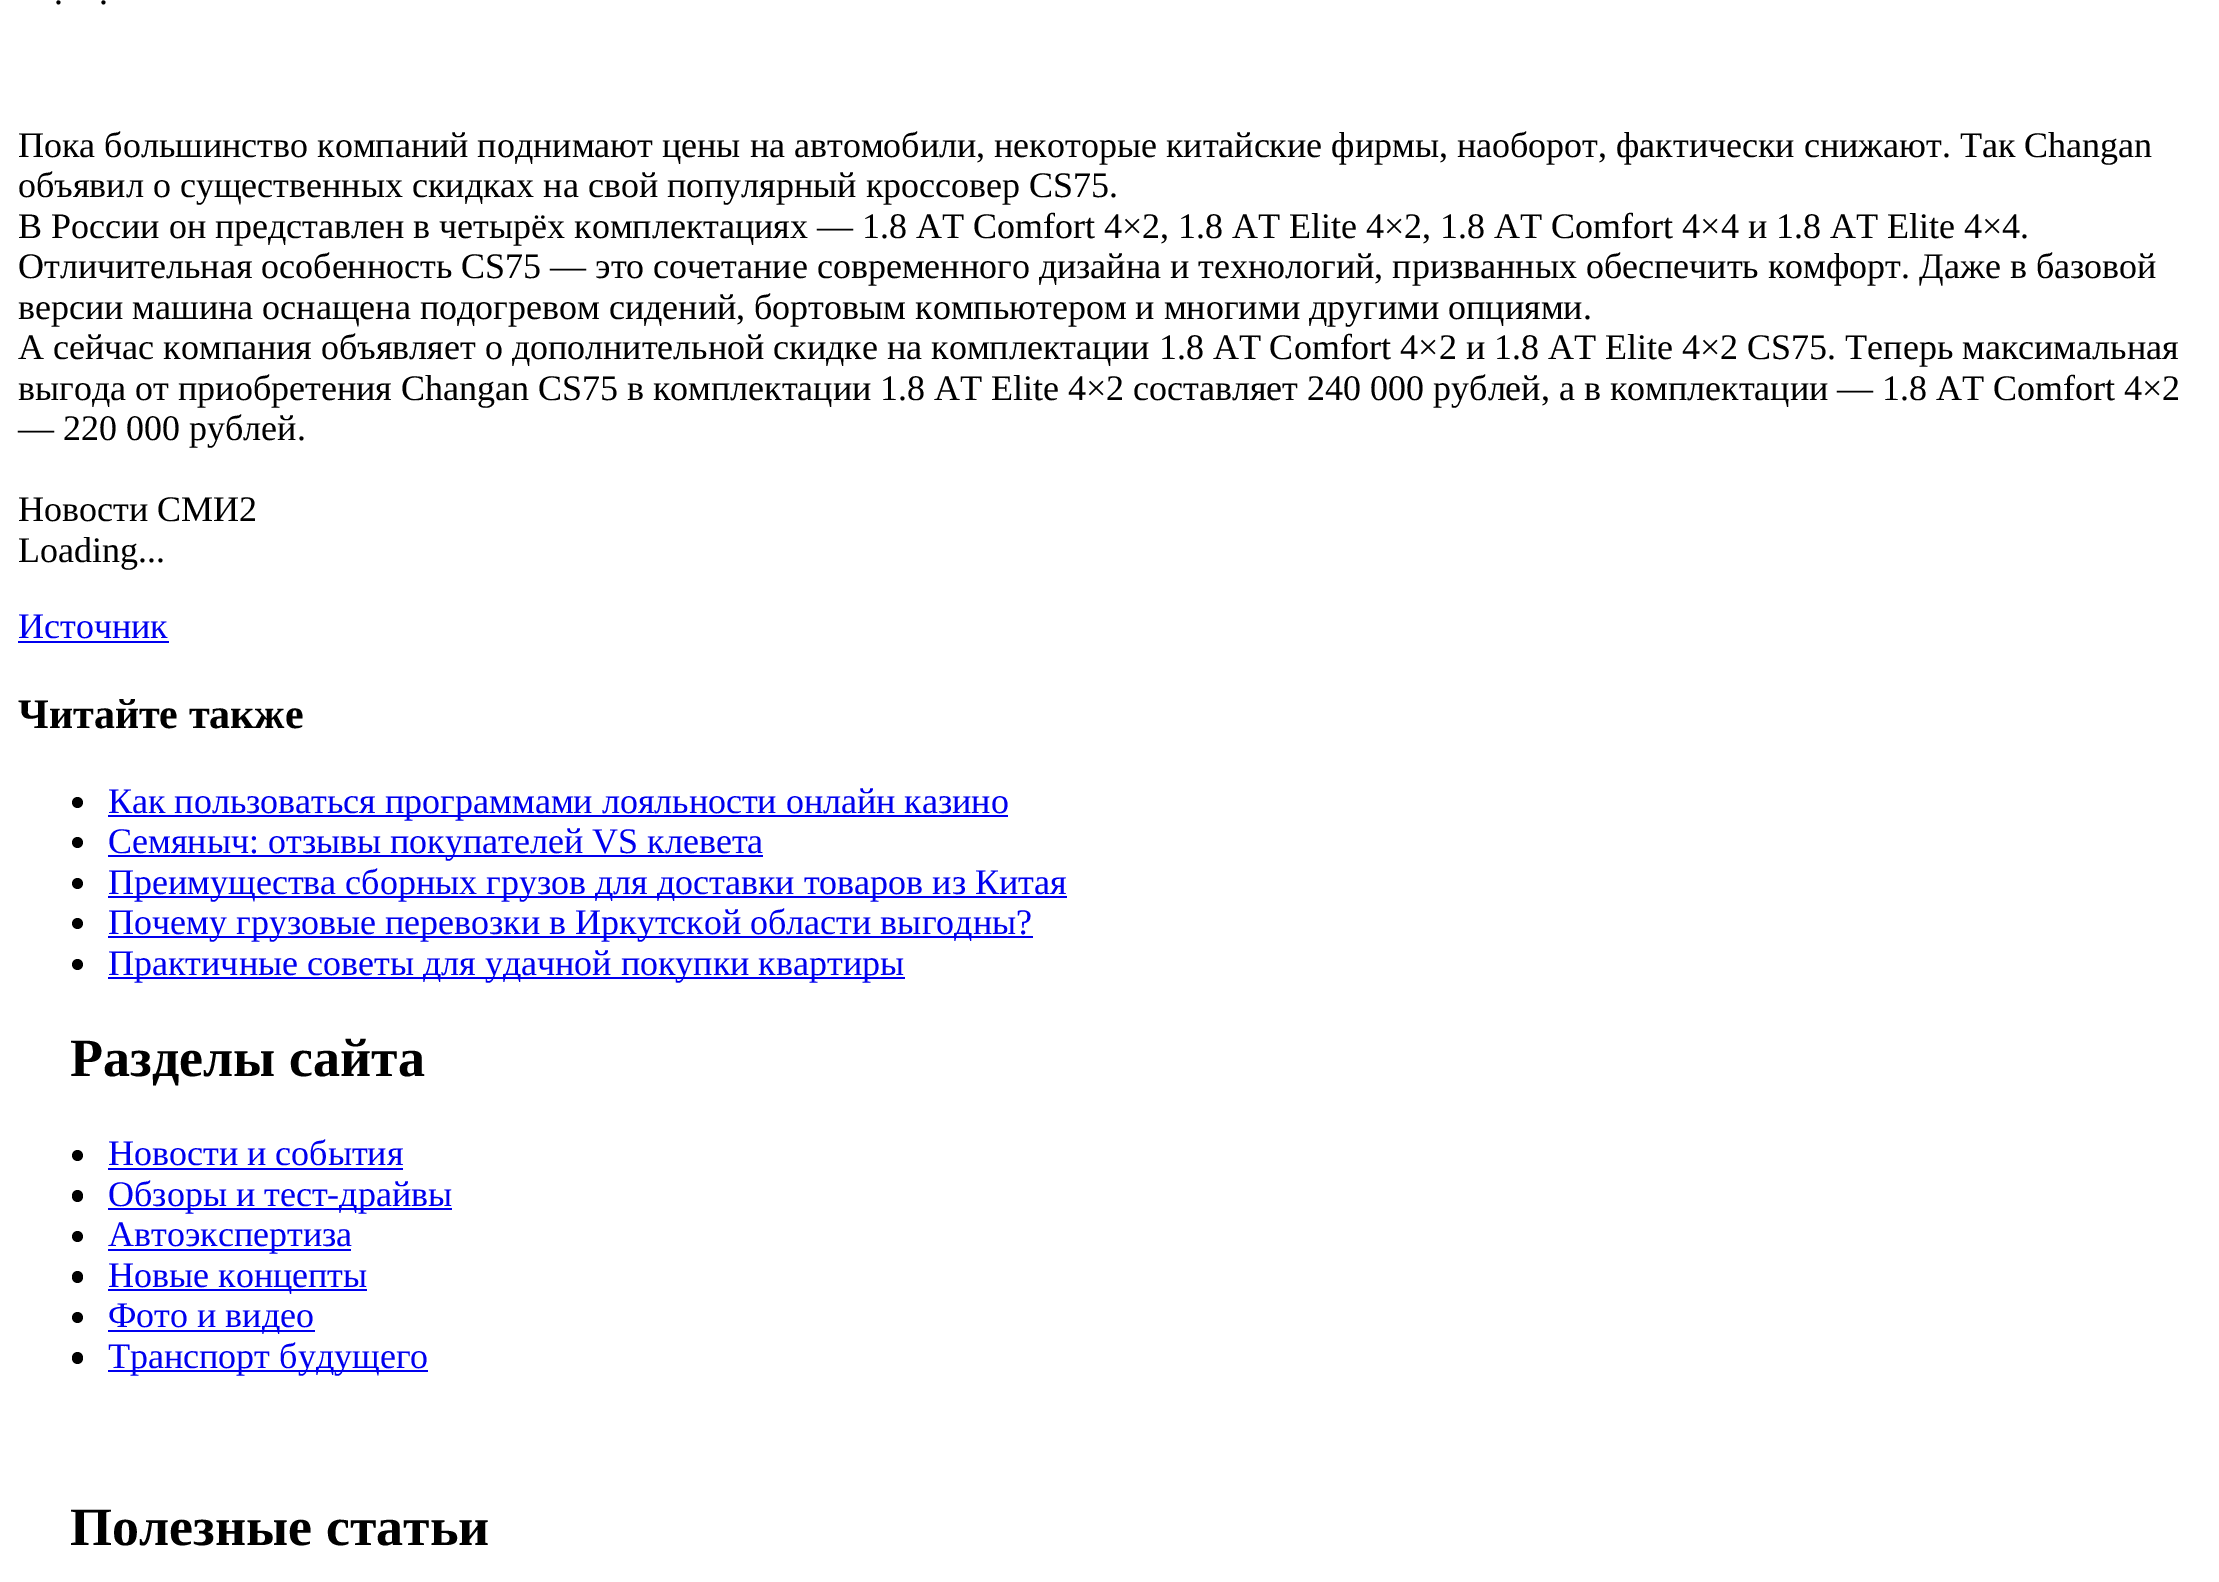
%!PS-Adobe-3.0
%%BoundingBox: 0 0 2219 1582
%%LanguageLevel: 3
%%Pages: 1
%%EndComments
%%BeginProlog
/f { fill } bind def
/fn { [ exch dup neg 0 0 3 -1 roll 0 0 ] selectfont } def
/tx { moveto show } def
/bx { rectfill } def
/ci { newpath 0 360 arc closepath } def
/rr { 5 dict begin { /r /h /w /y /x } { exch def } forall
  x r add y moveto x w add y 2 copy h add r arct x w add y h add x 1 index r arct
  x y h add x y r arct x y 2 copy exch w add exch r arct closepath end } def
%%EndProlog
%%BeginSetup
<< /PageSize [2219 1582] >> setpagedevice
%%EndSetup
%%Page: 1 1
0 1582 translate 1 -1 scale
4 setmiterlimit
1 setgray
0 0 2219 1582 bx
/LiberationSerif-Regular 36 fn
0 setgray
(.) 54 4 tx
(.) 99 4 tx
(Пока большинство компаний поднимают цены на автомобили, некоторые китайские фирмы, наоборот, фактически снижают. Так Changan) 18 157 tx
(объявил о существенных скидках на свой популярный кроссовер CS75.) 18 197 tx
(В России он представлен в четырёх комплектациях — 1.8 AT Comfort 4×2, 1.8 AT Elite 4×2, 1.8 AT Comfort 4×4 и 1.8 AT Elite 4×4.) 18 238 tx
(Отличительная особенность CS75 — это сочетание современного дизайна и технологий, призванных обеспечить комфорт. Даже в базовой) 18 278 tx
(версии машина оснащена подогревом сидений, бортовым компьютером и многими другими опциями.) 18 319 tx
(А сейчас компания объявляет о дополнительной скидке на комплектации 1.8 AT Comfort 4×2 и 1.8 AT Elite 4×2 CS75. Теперь максимальная) 18 359 tx
(выгода от приобретения Changan CS75 в комплектации 1.8 AT Elite 4×2 составляет 240 000 рублей, а в комплектации — 1.8 AT Comfort 4×2) 18 400 tx
(— 220 000 рублей.) 18 440 tx
(Новости СМИ2) 18 521 tx
(Loading...) 18 562 tx
0 0 0.933 setrgbcolor
(Источник) 18 638 tx
18 641 151 2 bx
/LiberationSerif-Bold 42 fn
0 setgray
(Читайте также) 18 728 tx
77.5 802.5 5.5 ci f
0 0 0.933 setrgbcolor
108 815 900 2 bx
/LiberationSerif-Regular 36 fn
(Как пользоваться программами лояльности онлайн казино) 108 813 tx
0 setgray
77.5 842.5 5.5 ci f
0 0 0.933 setrgbcolor
108 855 655 2 bx
(Семяныч: отзывы покупателей VS клевета) 108 853 tx
0 setgray
77.5 883.5 5.5 ci f
0 0 0.933 setrgbcolor
108 896 959 2 bx
(Преимущества сборных грузов для доставки товаров из Китая) 108 894 tx
0 setgray
77.5 923.5 5.5 ci f
0 0 0.933 setrgbcolor
108 936 925 2 bx
(Почему грузовые перевозки в Иркутской области выгодны?) 108 934 tx
0 setgray
77.5 964.5 5.5 ci f
0 0 0.933 setrgbcolor
108 977 797 2 bx
(Практичные советы для удачной покупки квартиры) 108 975 tx
/LiberationSerif-Bold 54 fn
0 setgray
(Разделы сайта) 70 1076 tx
77.5 1155.5 5.5 ci f
/LiberationSerif-Regular 36 fn
0 0 0.933 setrgbcolor
(Новости и события) 108 1165 tx
108 1168 295 2 bx
0 setgray
72 1190 11 12 5.5 rr f
0 0 0.933 setrgbcolor
108 1208 344 2 bx
(Обзоры и тест-драйвы) 108 1206 tx
0 setgray
77.5 1236.5 5.5 ci f
0 0 0.933 setrgbcolor
108 1249 243 2 bx
(Автоэкспертиза) 108 1246 tx
0 setgray
72 1271 11 12 5.5 rr f
0 0 0.933 setrgbcolor
108 1289 259 2 bx
(Новые концепты) 108 1287 tx
0 setgray
77.5 1317.5 5.5 ci f
0 0 0.933 setrgbcolor
108 1330 207 2 bx
(Фото и видео) 108 1327 tx
0 setgray
72 1352 11 12 5.5 rr f
0 0 0.933 setrgbcolor
108 1370 320 2 bx
(Транспорт будущего) 108 1368 tx
/LiberationSerif-Bold 54 fn
0 setgray
(Полезные статьи) 70 1545 tx
showpage
%%EOF
